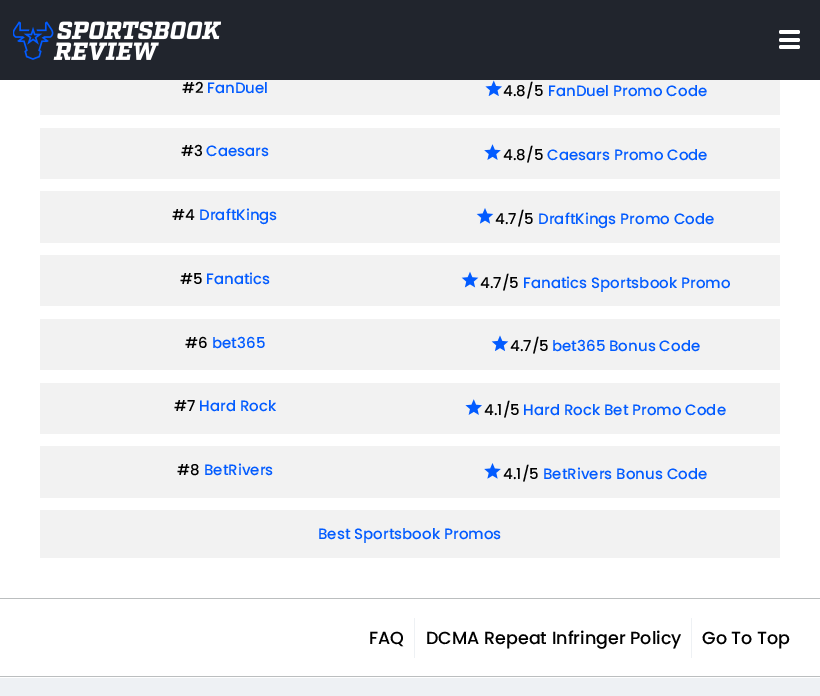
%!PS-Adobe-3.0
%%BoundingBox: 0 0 820 696
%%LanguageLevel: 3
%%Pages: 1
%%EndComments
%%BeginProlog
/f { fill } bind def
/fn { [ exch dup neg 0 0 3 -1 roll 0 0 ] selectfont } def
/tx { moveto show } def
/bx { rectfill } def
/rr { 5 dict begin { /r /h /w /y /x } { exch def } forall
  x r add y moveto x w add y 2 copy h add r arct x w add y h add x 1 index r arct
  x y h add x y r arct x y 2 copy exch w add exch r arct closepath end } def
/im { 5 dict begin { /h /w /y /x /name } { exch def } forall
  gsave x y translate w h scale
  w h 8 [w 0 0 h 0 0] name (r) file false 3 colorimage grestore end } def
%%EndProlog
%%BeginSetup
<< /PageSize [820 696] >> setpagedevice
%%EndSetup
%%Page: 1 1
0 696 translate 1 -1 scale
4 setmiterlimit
0.933 0.945 0.957 setrgbcolor
0 0 820 696 bx
0.129 0.145 0.176 setrgbcolor
0 0 820 80 bx
(image0.raw) 13 21 208 39 im
1 setgray
779 30 21 4 2 rr f
779 38 21 4 2 rr f
779 45 21 4 2 rr f
0 80 820 518 bx
0.949 setgray
40 80 740 35 bx
/Poppins-Medium 15 fn
0 setgray
(#2) 182 93 tx
0.008 0.357 1 setrgbcolor
(FanDuel) 207 93 tx
(image1.raw) 485 80 17 16 im
0 setgray
(4.8/5) 503 96 tx
0.008 0.357 1 setrgbcolor
(FanDuel Promo Code) 548 96 tx
0.949 setgray
40 128 740 51 bx
0 setgray
(#3) 181 156 tx
0.008 0.357 1 setrgbcolor
(Caesars) 206 156 tx
(image2.raw) 484 144 17 16 im
0 setgray
(4.8/5) 503 160 tx
0.008 0.357 1 setrgbcolor
(Caesars Promo Code) 547 160 tx
0.949 setgray
40 191 740 52 bx
0 setgray
(#4) 172 220 tx
0.008 0.357 1 setrgbcolor
(DraftKings) 199 220 tx
(image3.raw) 476 208 18 16 im
0 setgray
(4.7/5) 495 224 tx
0.008 0.357 1 setrgbcolor
(DraftKings Promo Code) 538 224 tx
0.949 setgray
40 255 740 51 bx
0 setgray
(#5) 180 284 tx
0.008 0.357 1 setrgbcolor
(Fanatics) 206 284 tx
(image4.raw) 461 271 18 17 im
0 setgray
(4.7/5) 480 288 tx
0.008 0.357 1 setrgbcolor
(Fanatics Sportsbook Promo) 523 288 tx
0.949 setgray
40 319 740 51 bx
0 setgray
(#6) 185 348 tx
0.008 0.357 1 setrgbcolor
(bet365) 212 348 tx
(image5.raw) 491 335 18 16 im
0 setgray
(4.7/5) 510 351 tx
0.008 0.357 1 setrgbcolor
(bet365 Bonus Code) 552 351 tx
0.949 setgray
40 383 740 51 bx
0 setgray
(#7) 174 411 tx
0.008 0.357 1 setrgbcolor
(Hard Rock) 199 411 tx
(image6.raw) 465 399 17 16 im
0 setgray
(4.1/5) 484 415 tx
0.008 0.357 1 setrgbcolor
(Hard Rock Bet Promo Code) 523 415 tx
0.949 setgray
40 446 740 52 bx
0 setgray
(#8) 177 475 tx
0.008 0.357 1 setrgbcolor
(BetRivers) 204 475 tx
(image7.raw) 484 463 17 16 im
0 setgray
(4.1/5) 503 479 tx
0.008 0.357 1 setrgbcolor
(BetRivers Bonus Code) 543 479 tx
0.949 setgray
40 510 740 48 bx
0.008 0.357 1 setrgbcolor
(Best Sportsbook Promos) 318 539 tx
1 setgray
0 599 820 79 bx
0.733 0.745 0.749 setrgbcolor
0 598 820 1 bx
0 676 820 1 bx
/Poppins-Medium 17.5 fn
0 setgray
(FAQ) 369 644 tx
0.933 0.945 0.957 setrgbcolor
414 618 1 40 bx
0 setgray
(DCMA Repeat Infringer Policy) 426 644 tx
0.933 0.945 0.957 setrgbcolor
691 618 1 40 bx
0 setgray
(Go To Top) 702 644 tx
showpage
%%EOF
